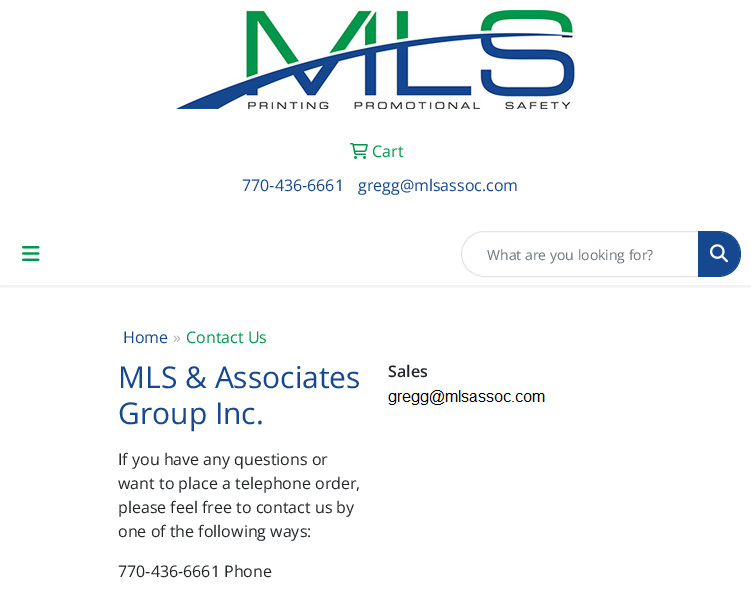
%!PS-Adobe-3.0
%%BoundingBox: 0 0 751 591
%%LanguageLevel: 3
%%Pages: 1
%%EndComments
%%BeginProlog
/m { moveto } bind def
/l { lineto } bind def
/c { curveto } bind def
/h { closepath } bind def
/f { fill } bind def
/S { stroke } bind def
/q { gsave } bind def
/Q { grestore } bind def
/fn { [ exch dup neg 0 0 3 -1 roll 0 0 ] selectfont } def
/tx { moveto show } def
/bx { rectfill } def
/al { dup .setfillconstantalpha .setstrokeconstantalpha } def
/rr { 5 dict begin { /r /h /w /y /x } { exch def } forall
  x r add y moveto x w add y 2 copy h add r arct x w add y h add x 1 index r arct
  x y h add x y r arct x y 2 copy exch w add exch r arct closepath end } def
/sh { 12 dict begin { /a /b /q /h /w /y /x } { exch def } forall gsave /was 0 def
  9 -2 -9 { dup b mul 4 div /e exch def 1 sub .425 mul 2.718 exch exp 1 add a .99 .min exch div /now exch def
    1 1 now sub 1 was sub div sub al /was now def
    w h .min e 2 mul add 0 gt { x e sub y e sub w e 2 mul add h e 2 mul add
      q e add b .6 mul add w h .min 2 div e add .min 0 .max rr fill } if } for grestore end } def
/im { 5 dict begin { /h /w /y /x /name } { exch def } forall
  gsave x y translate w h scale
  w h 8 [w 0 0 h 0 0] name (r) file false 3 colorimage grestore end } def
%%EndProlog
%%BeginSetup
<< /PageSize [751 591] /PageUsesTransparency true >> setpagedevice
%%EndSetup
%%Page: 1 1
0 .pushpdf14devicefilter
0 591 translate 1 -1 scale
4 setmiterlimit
1 setgray
0 0 751 591 bx
(image0.raw) 176 10 400 99 im
(image1.raw) 350 143 18 16 im
/OpenSans-Regular 16 fn
0 0.588 0.306 setrgbcolor
(Cart) 372 157 tx
0.086 0.282 0.561 setrgbcolor
(770-436-6661) 242 191 tx
(gregg@mlsassoc.com) 358 191 tx
q
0 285 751 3 rectclip
0 setgray
0 225 751 62 0 2 0.07 sh
Q
(image2.raw) 22 246 18 15 im
0.894 setgray
484 231.5 m 698.5 231.5 l 698.5 276.5 l 484 276.5 l 471.5 276.5 461.5 266.5 461.5 254 c 461.5 241.5 471.5 231.5 484 231.5 c h S
/OpenSans-Regular 14 fn
0.424 0.459 0.49 setrgbcolor
(What are you looking for?) 487 260 tx
0.086 0.282 0.561 setrgbcolor
698 232 m 718 232 l 730 232 740 242 740 254 c 740 266 730 276 718 276 c 698 276 l h f
698 231 m 718 231 l 731 231 741 241 741 254 c 741 267 731 277 718 277 c 698 277 l h 698 232 m 718 232 l 730 232 740 242 740 254 c 740 266 730 276 718 276 c 698 276 l h eofill
(image3.raw) 710 244 18 19 im
/OpenSans-Regular 16 fn
(Home) 123 343 tx
0.698 0.694 0.694 setrgbcolor
(») 173 343 tx
0 0.588 0.306 setrgbcolor
(Contact Us) 186 343 tx
/OpenSans-Regular 30 fn
0.086 0.282 0.561 setrgbcolor
(MLS & Associates) 118 388 tx
(Group Inc.) 118 424 tx
/OpenSans-Regular 16 fn
0.129 0.145 0.161 setrgbcolor
(If you have any questions or) 118 465 tx
(want to place a telephone order,) 118 489 tx
(please feel free to contact us by) 118 513 tx
(one of the following ways:) 118 537 tx
(770-436-6661 Phone) 118 577 tx
/OpenSans-SemiBold 16 fn
(Sales) 388 377 tx
(image4.raw) 388 390 157 15 im
.poppdf14devicefilter showpage
%%EOF
